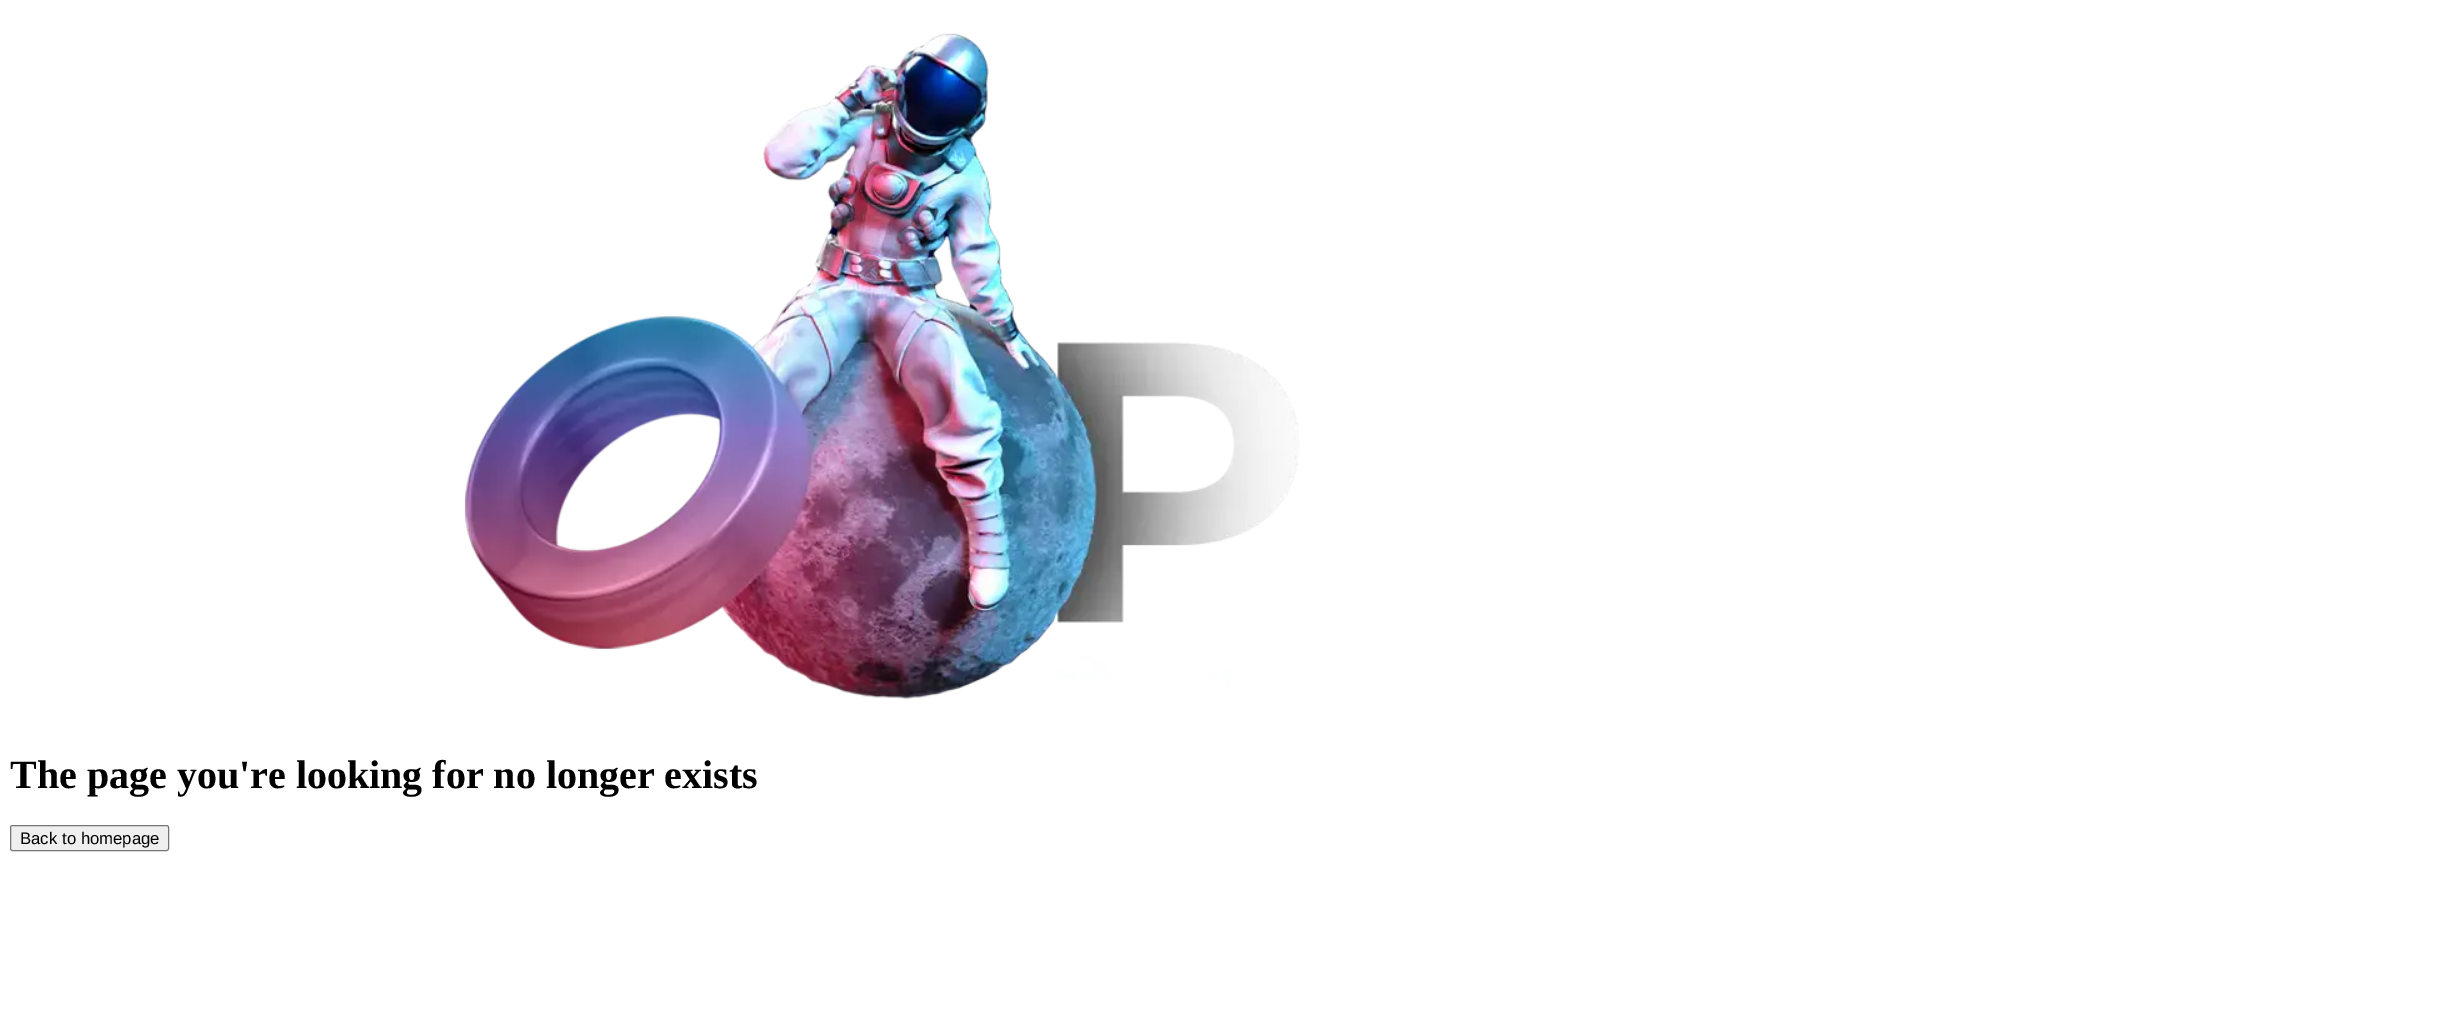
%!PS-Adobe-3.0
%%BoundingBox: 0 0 2460 1015
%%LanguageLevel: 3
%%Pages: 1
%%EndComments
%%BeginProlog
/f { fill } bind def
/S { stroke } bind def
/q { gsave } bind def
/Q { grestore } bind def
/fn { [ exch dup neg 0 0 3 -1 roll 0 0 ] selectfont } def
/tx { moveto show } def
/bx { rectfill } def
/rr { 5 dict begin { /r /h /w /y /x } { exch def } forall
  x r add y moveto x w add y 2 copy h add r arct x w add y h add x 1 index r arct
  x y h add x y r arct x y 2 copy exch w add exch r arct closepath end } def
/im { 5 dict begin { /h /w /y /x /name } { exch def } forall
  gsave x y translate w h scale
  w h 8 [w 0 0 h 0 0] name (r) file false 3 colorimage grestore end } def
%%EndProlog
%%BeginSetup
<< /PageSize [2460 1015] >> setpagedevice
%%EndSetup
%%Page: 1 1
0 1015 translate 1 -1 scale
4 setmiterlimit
1 setgray
0 0 2460 1015 bx
(image0.raw) 464 33 836 666 im
/LiberationSerif-Bold 40 fn
0 setgray
(The page you're looking for no longer exists) 10 788 tx
0.937 setgray
10.5 825.5 158 25 2 rr q f Q
0.463 setgray
S
/LiberationSans-Regular 16.75 fn
0 setgray
(Back to homepage) 20 844 tx
showpage
%%EOF
